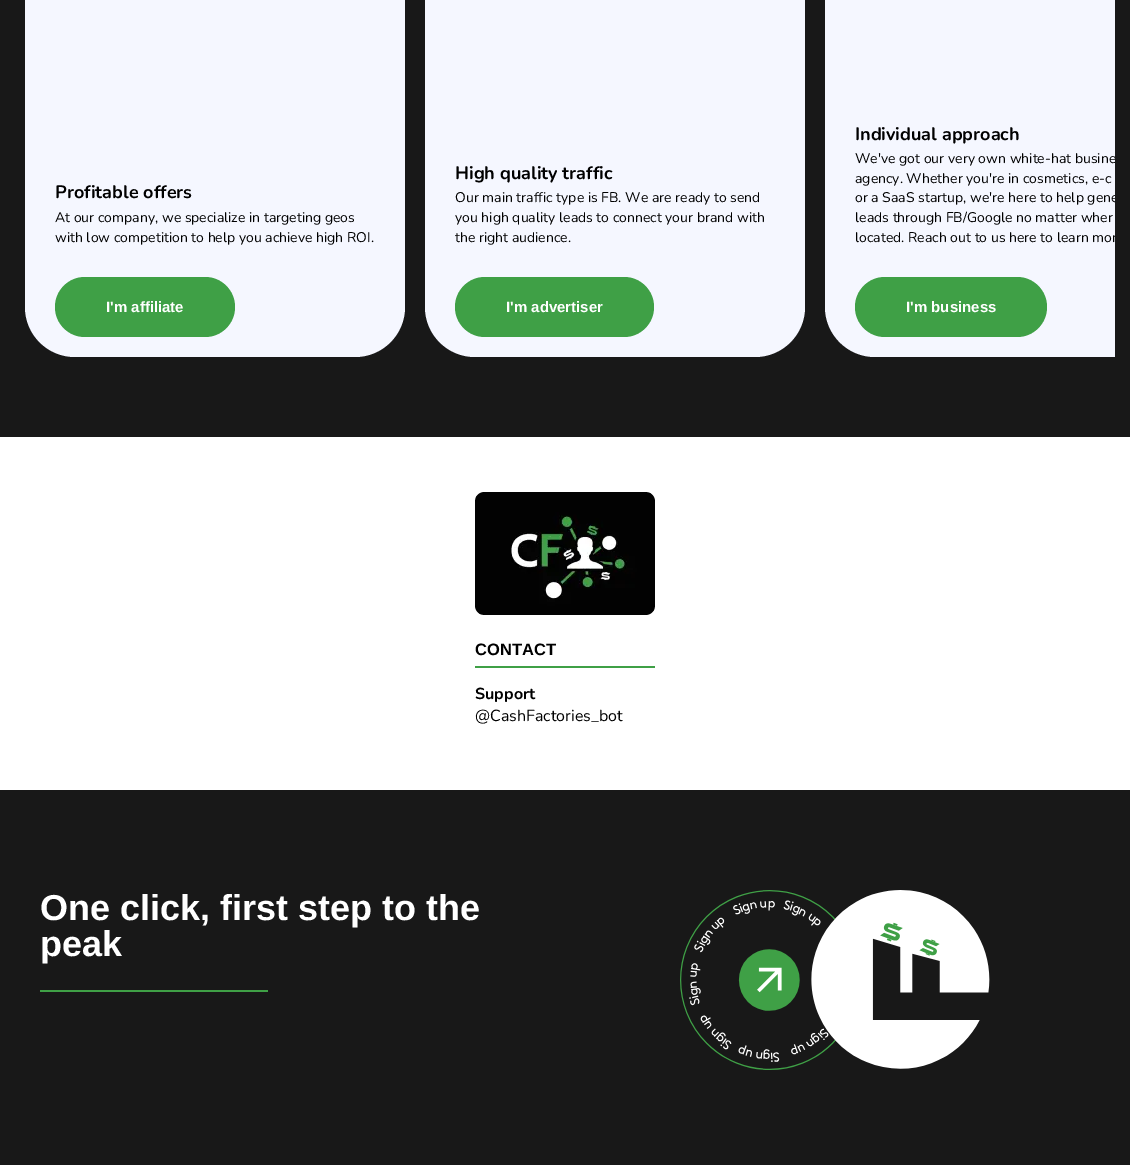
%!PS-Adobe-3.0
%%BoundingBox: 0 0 1130 1165
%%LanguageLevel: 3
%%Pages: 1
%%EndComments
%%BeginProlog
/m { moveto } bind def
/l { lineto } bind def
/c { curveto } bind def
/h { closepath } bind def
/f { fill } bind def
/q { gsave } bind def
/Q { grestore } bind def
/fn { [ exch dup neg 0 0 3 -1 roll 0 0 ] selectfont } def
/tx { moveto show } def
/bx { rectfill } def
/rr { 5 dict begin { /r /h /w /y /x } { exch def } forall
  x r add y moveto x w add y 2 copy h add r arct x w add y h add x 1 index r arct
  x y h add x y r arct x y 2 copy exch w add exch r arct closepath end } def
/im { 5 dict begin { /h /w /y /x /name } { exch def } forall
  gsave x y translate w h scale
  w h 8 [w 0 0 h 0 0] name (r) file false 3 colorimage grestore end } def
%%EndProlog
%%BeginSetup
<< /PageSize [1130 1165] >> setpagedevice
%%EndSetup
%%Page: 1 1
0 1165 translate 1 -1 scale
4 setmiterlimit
0.094 setgray
0 0 1130 1165 bx
0.961 0.969 1 setrgbcolor
25 -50 380 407 50 rr f
/Nunito-Bold 18 fn
0 setgray
(Profitable offers) 55 198 tx
/Nunito-Regular 14 fn
(At our company, we specialize in targeting geos) 55 222 tx
(with low competition to help you achieve high ROI.) 55 242 tx
0.247 0.627 0.275 setrgbcolor
55 277 180 60 30 rr f
/LiberationSans-Bold 15 fn
1 setgray
(I'm affiliate) 106 312 tx
0.961 0.969 1 setrgbcolor
425 -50 380 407 50 rr f
/Nunito-Bold 18 fn
0 setgray
(High quality traffic) 455 179 tx
/Nunito-Regular 14 fn
(Our main traffic type is FB. We are ready to send) 455 202 tx
(you high quality leads to connect your brand with) 455 222 tx
(the right audience.) 455 242 tx
0.247 0.627 0.275 setrgbcolor
455 277 199 60 30 rr f
/LiberationSans-Bold 15 fn
1 setgray
(I'm advertiser) 506 312 tx
0.961 0.969 1 setrgbcolor
875 -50 m 1115 -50 l 1115 357 l 875 357 l 847.5 357 825 334.5 825 307 c 825 0 l 825 -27.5 847.5 -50 875 -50 c h f
/Nunito-Bold 18 fn
0 setgray
(Individual approach) 855 140 tx
q
15 0 1100 387 rectclip
/Nunito-Regular 14 fn
(We've got our very own white-hat busine) 855 163 tx
Q
/Nunito-Regular 14 fn
(agency. Whether you're in cosmetics, e-c) 855 183 tx
q
15 0 1100 387 rectclip
(or a SaaS startup, we're here to help gene) 855 202 tx
Q
(leads through FB/Google no matter wher) 855 222 tx
q
15 0 1100 387 rectclip
(located. Reach out to us here to learn mor) 855 242 tx
Q
0.247 0.627 0.275 setrgbcolor
855 277 192 60 30 rr f
/LiberationSans-Bold 15 fn
1 setgray
(I'm business) 906 312 tx
0 437 1130 353 bx
(image0.raw) 475 492 180 123 im
0.247 0.627 0.275 setrgbcolor
475 666 180 2 bx
/LiberationSans-Bold 16.5 fn
0 setgray
(CONTACT) 475 655 tx
/Nunito-Bold 16 fn
(Support) 475 699 tx
/Nunito-Regular 16 fn
(@CashFactories_bot) 475 721 tx
/LiberationSans-Bold 36 fn
1 setgray
(One click, first step to the) 40 920 tx
(peak) 40 956 tx
0.247 0.627 0.275 setrgbcolor
40 990 228 2 bx
(image1.raw) 680 890 310 180 im
showpage
%%EOF
